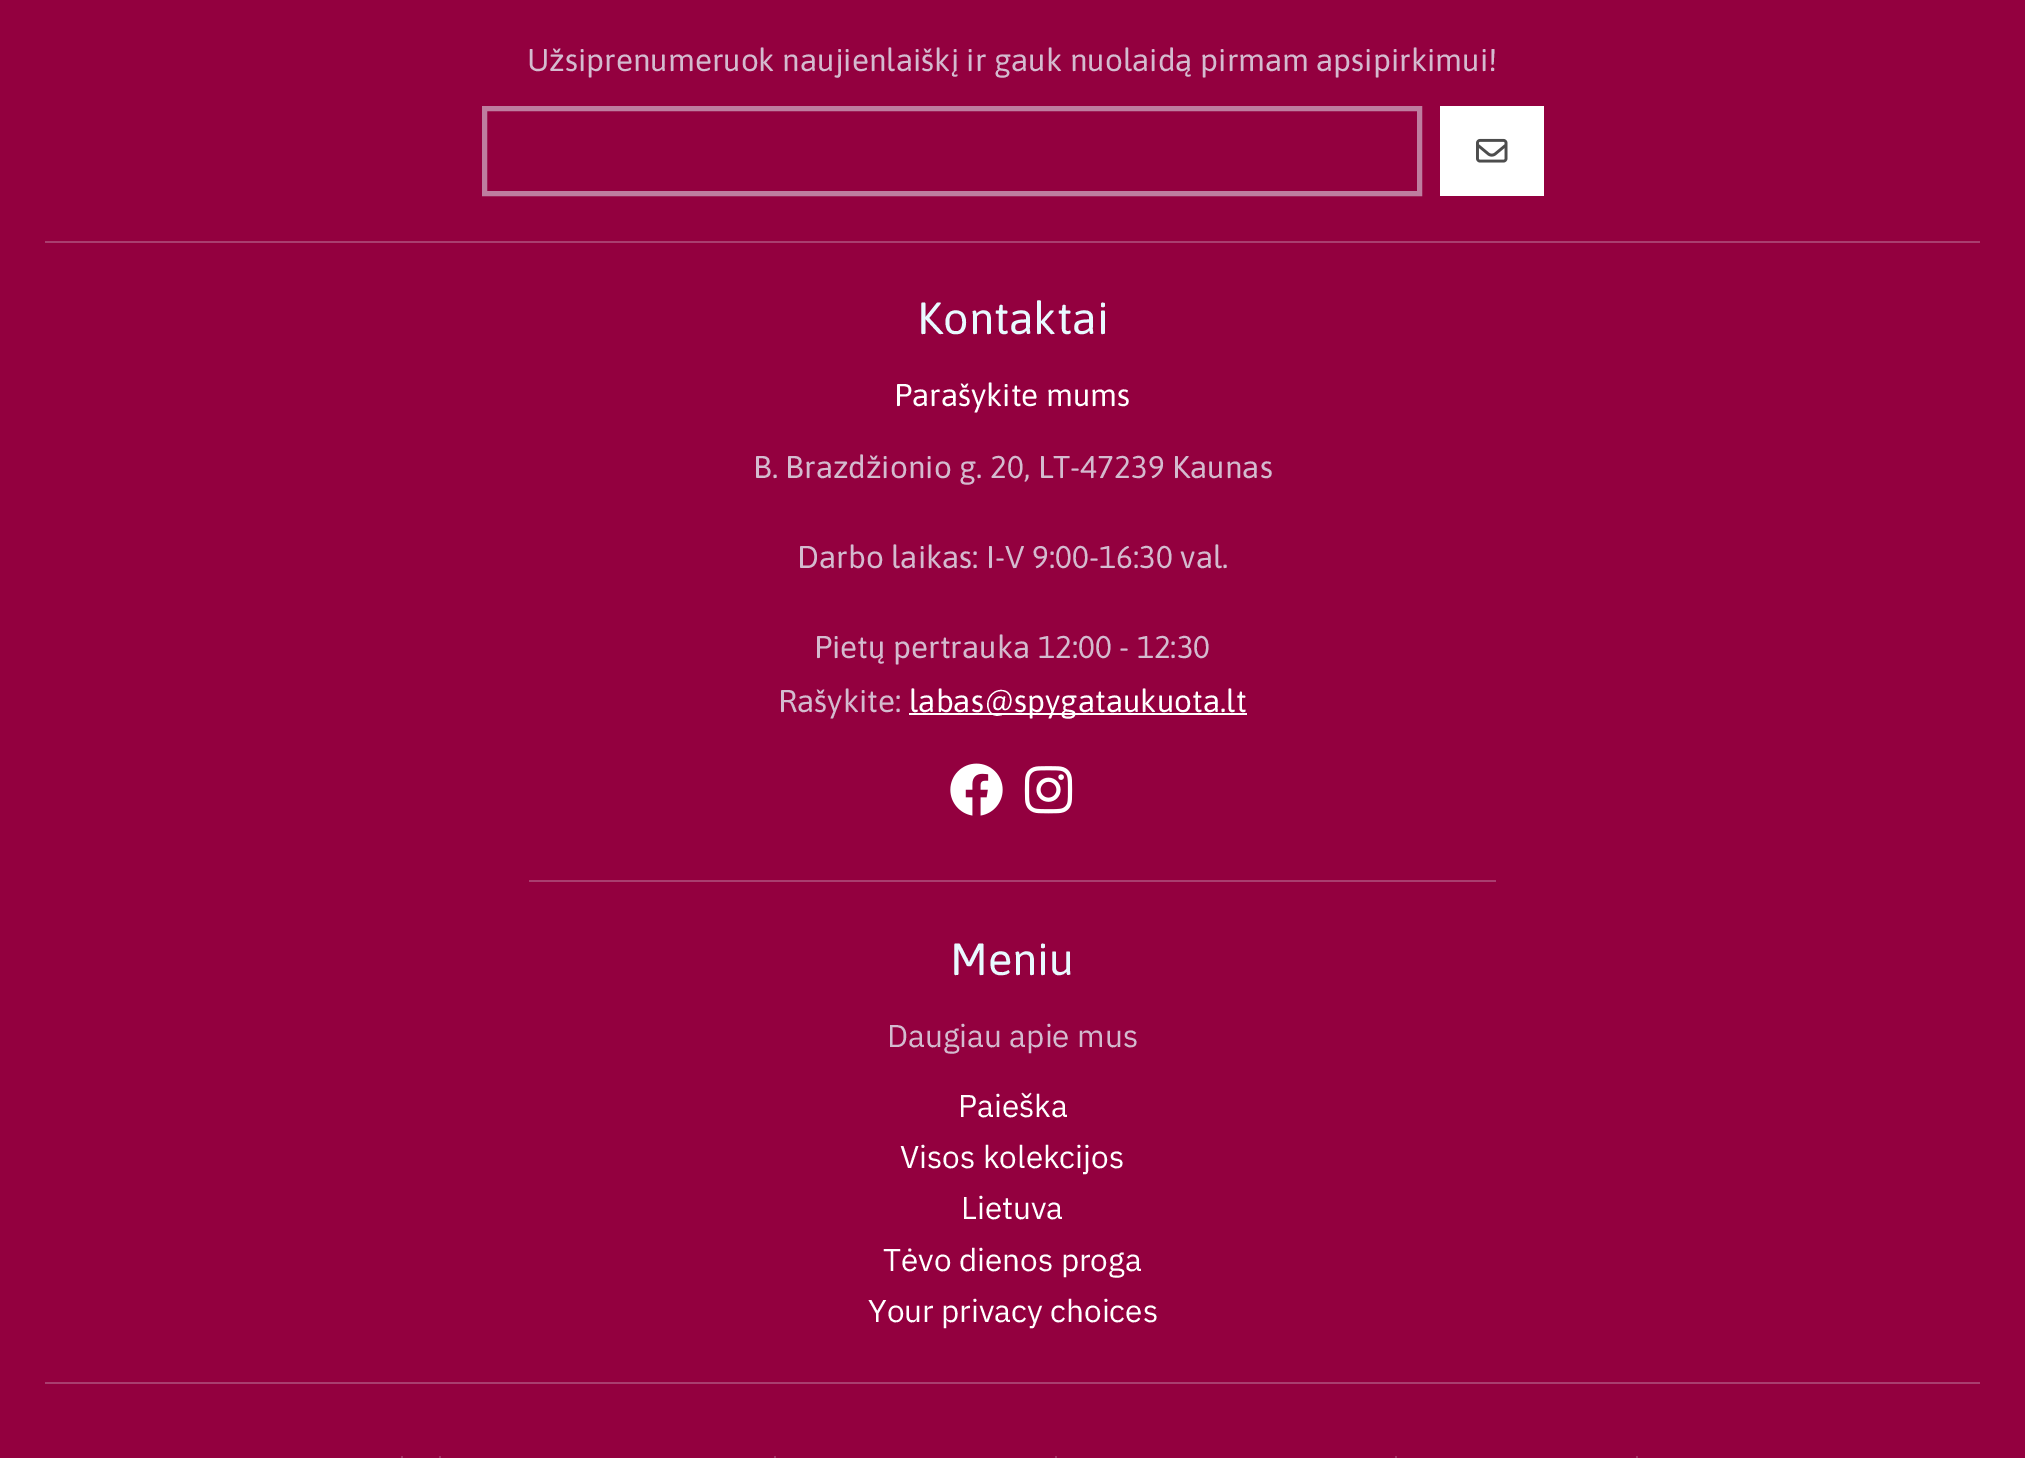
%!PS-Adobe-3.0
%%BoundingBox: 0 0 2025 1458
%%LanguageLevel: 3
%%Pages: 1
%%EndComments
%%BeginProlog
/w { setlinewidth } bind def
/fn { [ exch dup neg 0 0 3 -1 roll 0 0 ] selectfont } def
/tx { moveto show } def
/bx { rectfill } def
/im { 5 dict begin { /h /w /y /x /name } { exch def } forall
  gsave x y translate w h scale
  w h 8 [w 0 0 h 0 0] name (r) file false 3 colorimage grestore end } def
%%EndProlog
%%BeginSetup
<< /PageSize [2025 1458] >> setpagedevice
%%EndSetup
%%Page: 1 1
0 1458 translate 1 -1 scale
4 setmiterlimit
0.576 0 0.247 setrgbcolor
0 0 2025 1458 bx
/Asap-Regular 31.5 fn
0.831 0.733 0.812 setrgbcolor
(Užsiprenumeruok naujienlaiškį ir gauk nuolaidą pirmam apsipirkimui!) 527 71 tx
0.745 0.49 0.624 setrgbcolor
5 w
484.5 108.5 935 85 rectstroke
1 setgray
1440 106 104 90 bx
(image0.raw) 1476 138 32 25 im
0.663 0.243 0.435 setrgbcolor
45 241 1935 2 bx
/Asap-Regular 45 fn
0.914 0.976 1 setrgbcolor
(Kontaktai) 917 334 tx
/Asap-Regular 31.5 fn
1 setgray
(Parašykite mums) 894 406 tx
0.831 0.733 0.812 setrgbcolor
(B. Brazdžionio g. 20, LT-47239 Kaunas) 753 478 tx
(Darbo laikas: I-V 9:00-16:30 val.) 797 568 tx
(Pietų pertrauka 12:00 - 12:30) 814 658 tx
(Rašykite:) 778 712 tx
1 setgray
909 713 338 2 bx
(labas@spygataukuota.lt) 909 712 tx
(image1.raw) 950 763 53 53 im
(image2.raw) 1024 766 49 48 im
0.663 0.243 0.435 setrgbcolor
529 880 967 2 bx
/Asap-Regular 45 fn
0.914 0.976 1 setrgbcolor
(Meniu) 950 975 tx
/IBMPlexSans-Regular 31.5 fn
0.831 0.733 0.812 setrgbcolor
(Daugiau apie mus) 887 1047 tx
1 setgray
(Paieška) 958 1117 tx
(Visos kolekcijos) 900 1168 tx
(Lietuva) 961 1219 tx
(Tėvo dienos proga) 883 1271 tx
(Your privacy choices) 868 1322 tx
0.663 0.243 0.435 setrgbcolor
45 1382 1935 2 bx
0.643 0.196 0.396 setrgbcolor
401 1456 2 2 bx
439 1456 2 2 bx
774 1456 2 2 bx
1055 1456 2 2 bx
1395 1456 2 2 bx
1636 1456 2 2 bx
showpage
%%EOF
